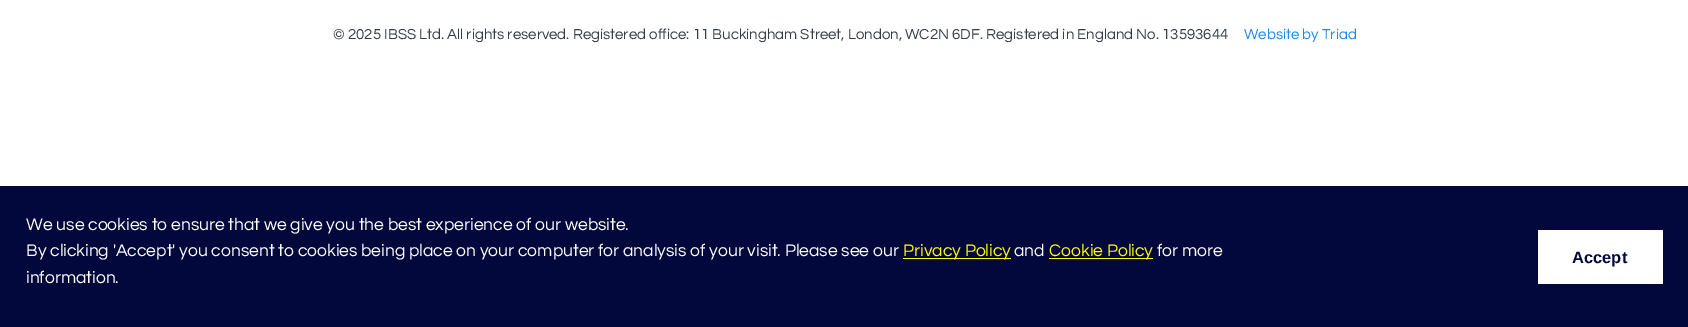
%!PS-Adobe-3.0
%%BoundingBox: 0 0 1688 327
%%LanguageLevel: 3
%%Pages: 1
%%EndComments
%%BeginProlog
/fn { [ exch dup neg 0 0 3 -1 roll 0 0 ] selectfont } def
/tx { moveto show } def
/bx { rectfill } def
%%EndProlog
%%BeginSetup
<< /PageSize [1688 327] >> setpagedevice
%%EndSetup
%%Page: 1 1
0 327 translate 1 -1 scale
4 setmiterlimit
1 setgray
0 0 1688 327 bx
/Questrial-Regular 15 fn
0.196 0.243 0.282 setrgbcolor
(© 2025 IBSS Ltd. All rights reserved. Registered office: 11 Buckingham Street, London, WC2N 6DF. Registered in England No. 13593644) 333 39 tx
0.118 0.529 0.941 setrgbcolor
(Website by Triad) 1244 39 tx
0.008 0.031 0.235 setrgbcolor
0 186 1688 141 bx
/Questrial-Regular 17.5 fn
1 setgray
(We use cookies to ensure that we give you the best experience of our website.) 26 230 tx
(By clicking 'Accept' you consent to cookies being place on your computer for analysis of your visit. Please see our) 26 256 tx
1 1 0 setrgbcolor
903 258 108 1 bx
(Privacy Policy) 903 256 tx
1 setgray
(and) 1014 256 tx
1 1 0 setrgbcolor
1049 258 104 1 bx
(Cookie Policy) 1049 256 tx
1 setgray
(for more) 1157 256 tx
(information.) 26 283 tx
1538 230 125 54 bx
/LiberationSans-Bold 16.5 fn
0.008 0.031 0.235 setrgbcolor
(Accept) 1572 263 tx
showpage
%%EOF
